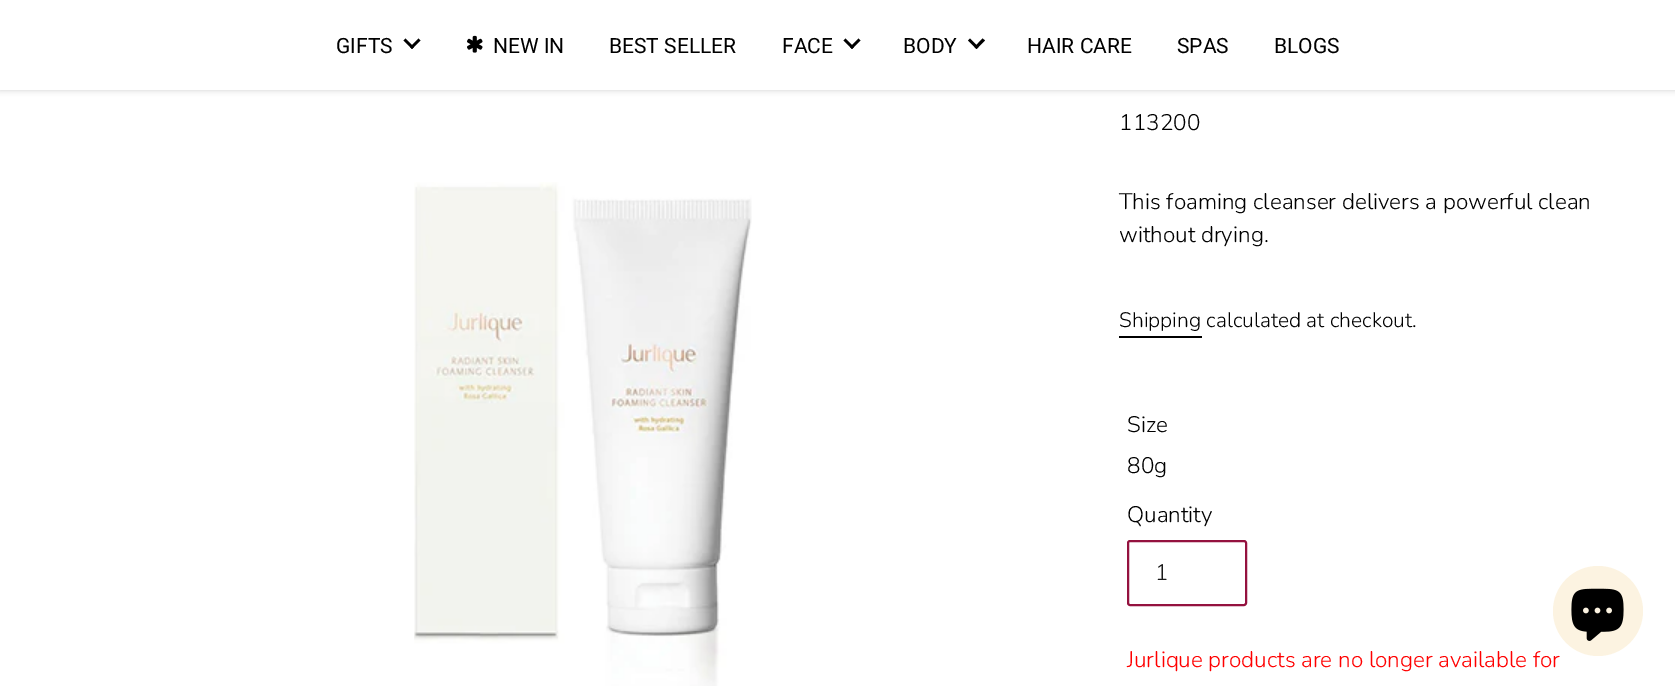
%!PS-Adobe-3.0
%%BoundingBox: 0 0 1675 686
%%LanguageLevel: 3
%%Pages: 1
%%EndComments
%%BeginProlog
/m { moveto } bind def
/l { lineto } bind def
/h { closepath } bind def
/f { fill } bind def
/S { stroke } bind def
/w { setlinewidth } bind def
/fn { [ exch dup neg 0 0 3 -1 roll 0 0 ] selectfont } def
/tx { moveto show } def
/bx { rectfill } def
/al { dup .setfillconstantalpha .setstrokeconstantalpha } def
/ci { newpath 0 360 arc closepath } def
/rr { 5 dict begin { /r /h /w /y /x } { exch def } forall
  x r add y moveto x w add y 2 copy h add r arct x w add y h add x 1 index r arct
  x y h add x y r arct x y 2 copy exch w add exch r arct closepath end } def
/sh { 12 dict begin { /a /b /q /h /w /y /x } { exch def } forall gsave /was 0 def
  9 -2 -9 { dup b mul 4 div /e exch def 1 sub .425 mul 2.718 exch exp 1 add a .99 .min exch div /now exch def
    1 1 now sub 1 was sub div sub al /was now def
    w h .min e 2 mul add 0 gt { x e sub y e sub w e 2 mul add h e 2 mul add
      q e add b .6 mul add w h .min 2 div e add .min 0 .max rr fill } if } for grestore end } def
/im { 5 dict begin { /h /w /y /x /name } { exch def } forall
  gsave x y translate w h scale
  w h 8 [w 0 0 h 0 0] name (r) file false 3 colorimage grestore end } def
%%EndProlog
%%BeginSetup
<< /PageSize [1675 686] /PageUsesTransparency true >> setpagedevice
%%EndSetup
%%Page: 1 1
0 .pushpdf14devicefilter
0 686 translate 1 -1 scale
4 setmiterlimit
1 setgray
0 0 1675 686 bx
0.8 setgray
0 0 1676 90 0 3 1 sh
1 setgray
0 0 1675 90 bx
/Roboto-Regular 21 fn
0 setgray
(GIFTS) 336 53 tx
420.5 40.5 m 412 49 l 410 47 l 418.5 38.5 l h f
414 47 m 412 49 l 403.5 40.5 l 405.5 38.5 l h f
(image0.raw) 467 35 16 18 im
(NEW IN) 493 53 tx
(BEST SELLER) 609 53 tx
(FACE) 782 53 tx
860.5 40.5 m 852 49 l 850 47 l 858.5 38.5 l h f
854 47 m 852 49 l 843.5 40.5 l 845.5 38.5 l h f
(BODY) 903 53 tx
985 40.5 m 976.5 49 l 974.5 47 l 982.5 38.5 l h f
978.5 47 m 976.5 49 l 968 40.5 l 970 38.5 l h f
(HAIR CARE) 1027 53 tx
(SPAS) 1177 53 tx
(BLOGS) 1274 53 tx
(image1.raw) 414 182 338 504 im
/Nunito-Light 22.5 fn
(113200) 1119 130 tx
(This foaming cleanser delivers a powerful clean) 1119 209 tx
(without drying.) 1119 242 tx
/Nunito-Light 21 fn
(Shipping calculated at checkout.) 1119 327 tx
1119 336 83 2 bx
/Nunito-Light 22.5 fn
(Size) 1127 432 tx
(80g) 1127 473 tx
(Quantity) 1127 522 tx
0.58 0.071 0.247 setrgbcolor
2 w
1128 541 118 64 2 rr S
0.102 setgray
(1) 1155 580 tx
1 0 0 setrgbcolor
(Jurlique products are no longer available for) 1127 667 tx
0.988 0.953 0.882 setrgbcolor
1598 611 45 ci f
(image2.raw) 1571 588 53 53 im
.poppdf14devicefilter showpage
%%EOF
